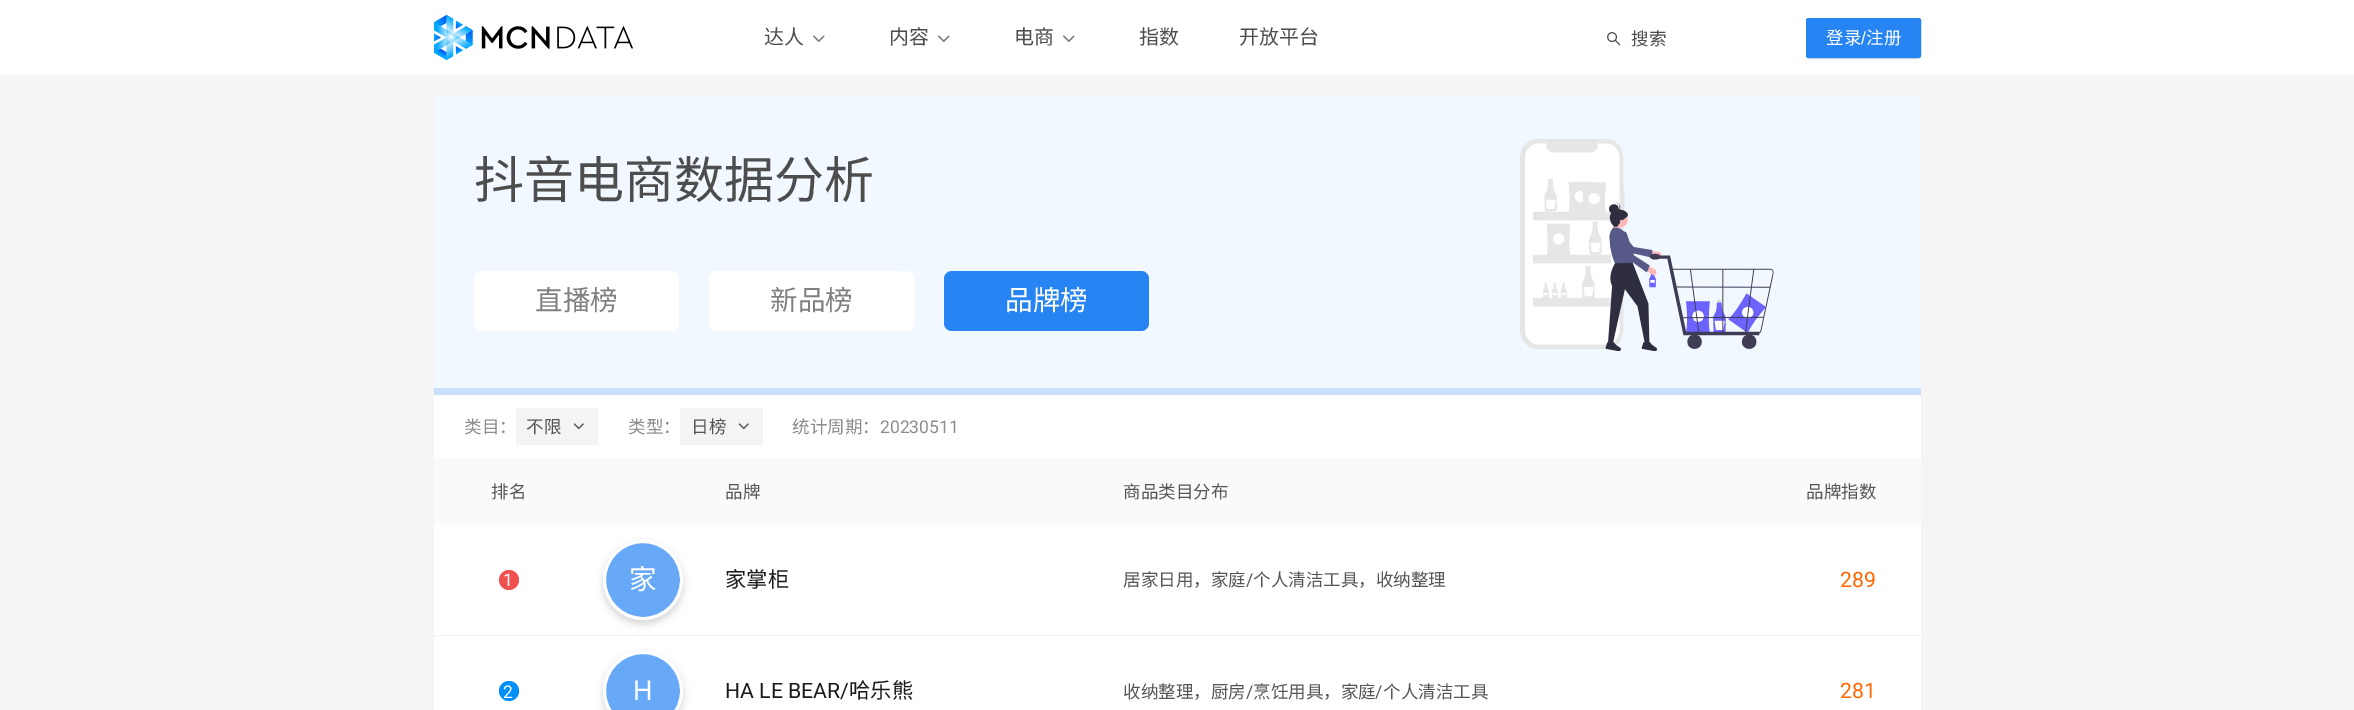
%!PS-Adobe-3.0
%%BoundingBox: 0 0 2354 710
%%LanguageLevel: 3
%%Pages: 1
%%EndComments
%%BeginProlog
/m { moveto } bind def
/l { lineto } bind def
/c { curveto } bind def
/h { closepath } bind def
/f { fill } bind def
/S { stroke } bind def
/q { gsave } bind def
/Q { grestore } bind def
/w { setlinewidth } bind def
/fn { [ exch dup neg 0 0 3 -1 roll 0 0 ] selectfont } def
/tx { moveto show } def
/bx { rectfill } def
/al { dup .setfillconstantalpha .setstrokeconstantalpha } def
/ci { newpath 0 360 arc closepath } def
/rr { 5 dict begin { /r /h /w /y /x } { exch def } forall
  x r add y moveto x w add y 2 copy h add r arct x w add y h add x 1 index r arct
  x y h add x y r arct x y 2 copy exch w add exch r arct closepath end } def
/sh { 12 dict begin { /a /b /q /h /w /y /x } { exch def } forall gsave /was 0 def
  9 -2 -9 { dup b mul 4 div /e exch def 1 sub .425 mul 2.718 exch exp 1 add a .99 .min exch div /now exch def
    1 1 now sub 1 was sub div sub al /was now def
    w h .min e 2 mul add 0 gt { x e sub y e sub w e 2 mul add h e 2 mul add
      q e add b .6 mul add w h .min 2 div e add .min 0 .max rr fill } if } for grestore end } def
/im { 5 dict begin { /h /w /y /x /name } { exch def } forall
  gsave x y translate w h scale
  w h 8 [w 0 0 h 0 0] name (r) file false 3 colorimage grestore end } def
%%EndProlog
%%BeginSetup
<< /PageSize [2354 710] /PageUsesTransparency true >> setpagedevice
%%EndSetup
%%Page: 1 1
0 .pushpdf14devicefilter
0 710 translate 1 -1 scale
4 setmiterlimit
1 setgray
0 0 2354 710 bx
(image0.raw) 434 15 200 45 im
/NotoSansCJKSC-Regular 20 fn
0.302 setgray
(达人) 764 44 tx
(image1.raw) 813 35 12 7 im
(内容) 889 44 tx
(image1.raw) 938 35 12 7 im
(电商) 1014 44 tx
(image1.raw) 1063 35 12 7 im
(指数) 1139 44 tx
(开放平台) 1239 44 tx
(image2.raw) 1607 32 14 14 im
/NotoSansCJKSC-Regular 17.5 fn
(搜索) 1631 45 tx
0.957 setgray
1806 21 m 1806 46 l 1806 65 1804 60 1827 60 c 1918 60 l 1921 60 1921 58 1921 56 c 1921 57 1920 58 1919 58 c 1809 58 l 1807 58 1806 56 1806 55 c h f
0.153 0.518 0.953 setrgbcolor
1806.5 18.5 114 39 2 rr q f Q
S
1 setgray
(登录) 1826 44 tx
/LiberationSans-Regular 17.5 fn
(/) 1861 44 tx
/NotoSansCJKSC-Regular 17.5 fn
(注册) 1866 44 tx
0.961 setgray
0 75 2354 635 bx
0.949 0.973 1 setrgbcolor
434 95 1487 293 bx
0.784 0.878 0.988 setrgbcolor
434 388 1487 7 bx
/NotoSansCJKSC-Regular 50 fn
0.302 setgray
(抖音电商数据分析) 474 198 tx
1 setgray
474 271 205 60 8 rr f
/NotoSansCJKSC-Regular 27.5 fn
0.502 setgray
(直播榜) 535 310 tx
1 setgray
709 271 205 60 8 rr f
0.502 setgray
(新品榜) 770 310 tx
0.153 0.518 0.953 setrgbcolor
944 271 205 60 8 rr f
1 setgray
(品牌榜) 1005 310 tx
(image3.raw) 1520 139 254 212 im
434 395 1487 315 bx
/NotoSansCJKSC-Regular 17.5 fn
0.549 setgray
(类目：) 464 433 tx
0.961 0.957 0.961 setrgbcolor
516 408 82 37 bx
0.337 0.333 0.337 setrgbcolor
(不限) 526 433 tx
(image4.raw) 573 423 11 7 im
0.549 setgray
(类型：) 628 433 tx
0.961 0.957 0.961 setrgbcolor
680 408 83 37 bx
0.337 0.333 0.337 setrgbcolor
(日榜) 691 433 tx
(image4.raw) 738 423 11 7 im
0.549 setgray
(统计周期：) 792 433 tx
/Roboto-Regular 17.5 fn
(20230511) 880 433 tx
0.98 setgray
436.5 458 m 583 458 l 583 525 l 434 525 l 434 460.5 l 434 459 435 458 436.5 458 c h f
/NotoSansCJKSC-Regular 17.5 fn
0.337 0.333 0.337 setrgbcolor
(排名) 491 498 tx
0.98 setgray
583 458 1116 67 bx
0.337 0.333 0.337 setrgbcolor
(品牌) 725 498 tx
(商品类目分布) 1123 498 tx
0.98 setgray
1699 458 m 1918.5 458 l 1920 458 1921 459 1921 460.5 c 1921 525 l 1699 525 l h f
0.337 0.333 0.337 setrgbcolor
(品牌指数) 1806 498 tx
0.941 setgray
434 635 1487 1 bx
0.945 0.314 0.314 setrgbcolor
509 580 10 ci f
/Roboto-Regular 17.5 fn
1 setgray
(1) 503 586 tx
q
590 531 m 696 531 l 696 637 l 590 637 l h 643 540 m 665 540 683 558 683 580 c 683 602 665 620 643 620 c 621 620 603 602 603 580 c 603 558 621 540 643 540 c h eoclip newpath
0 setgray
603 544 80 80 40 4 0.16 sh
Q
0.7 al
0.153 0.518 0.953 setrgbcolor
643 580 38.5 ci f
1 al
1 setgray
3 w
643 580 38.5 ci S
/NotoSansCJKSC-Regular 27.5 fn
(家) 629 589 tx
/NotoSansCJKSC-Regular 21.25 fn
0.102 setgray
(家掌柜) 725 587 tx
/NotoSansCJKSC-Regular 17.5 fn
0.337 0.333 0.337 setrgbcolor
(居家日用，家庭) 1123 586 tx
/Roboto-Regular 17.5 fn
(/) 1246 586 tx
/NotoSansCJKSC-Regular 17.5 fn
(个人清洁工具，收纳整理) 1253 586 tx
/Roboto-Regular 21.25 fn
1 0.4 0 setrgbcolor
(289) 1840 587 tx
0 0.561 0.969 setrgbcolor
509 691 10 ci f
/Roboto-Regular 17.5 fn
1 setgray
(2) 503 698 tx
q
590 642 m 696 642 l 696 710 l 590 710 l h 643 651 m 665 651 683 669 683 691 c 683 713 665 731 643 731 c 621 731 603 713 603 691 c 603 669 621 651 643 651 c h eoclip newpath
0 setgray
603 655 80 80 40 4 0.16 sh
Q
0.7 al
0.153 0.518 0.953 setrgbcolor
643 691 38.5 ci f
1 al
1 setgray
643 691 38.5 ci S
/Roboto-Regular 27.5 fn
(H) 633 700 tx
/Roboto-Regular 21.25 fn
0.102 setgray
(HA LE BEAR/) 725 698 tx
/NotoSansCJKSC-Regular 21.25 fn
(哈乐熊) 849 698 tx
/NotoSansCJKSC-Regular 17.5 fn
0.337 0.333 0.337 setrgbcolor
(收纳整理，厨房) 1123 698 tx
/Roboto-Regular 17.5 fn
(/) 1246 698 tx
/NotoSansCJKSC-Regular 17.5 fn
(烹饪用具，家庭) 1253 698 tx
/Roboto-Regular 17.5 fn
(/) 1375 698 tx
/NotoSansCJKSC-Regular 17.5 fn
(个人清洁工具) 1383 698 tx
/Roboto-Regular 21.25 fn
1 0.4 0 setrgbcolor
(281) 1840 698 tx
.poppdf14devicefilter showpage
%%EOF
